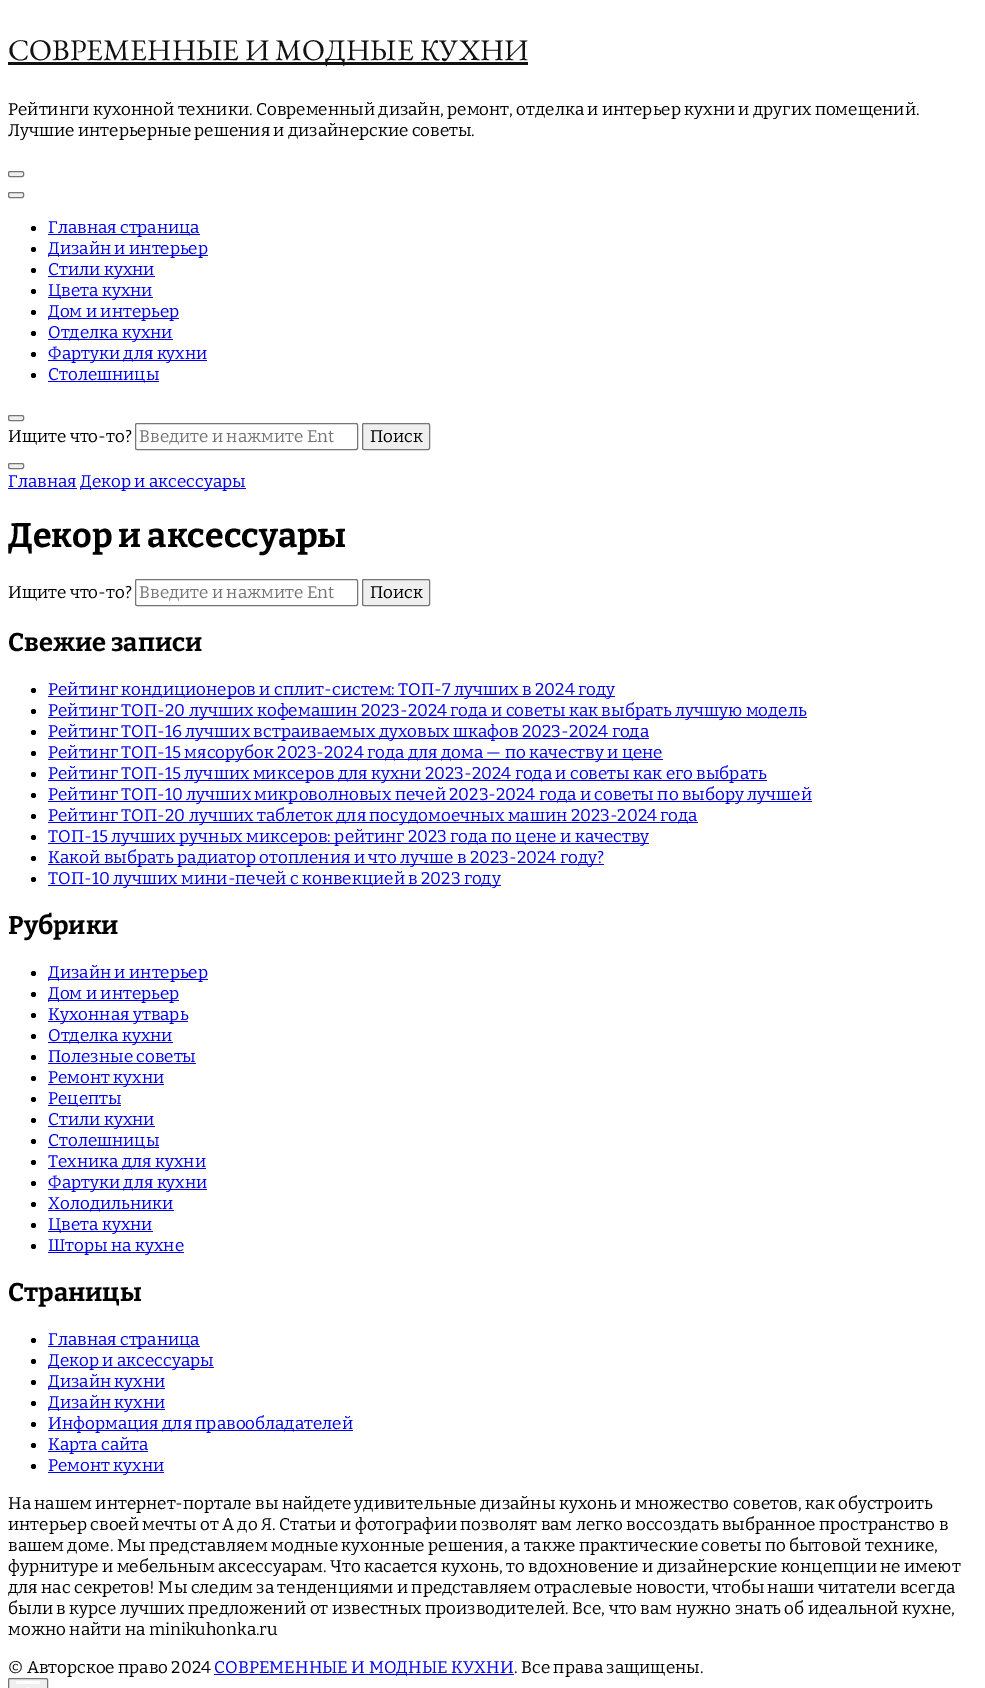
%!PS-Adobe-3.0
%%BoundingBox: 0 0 985 1688
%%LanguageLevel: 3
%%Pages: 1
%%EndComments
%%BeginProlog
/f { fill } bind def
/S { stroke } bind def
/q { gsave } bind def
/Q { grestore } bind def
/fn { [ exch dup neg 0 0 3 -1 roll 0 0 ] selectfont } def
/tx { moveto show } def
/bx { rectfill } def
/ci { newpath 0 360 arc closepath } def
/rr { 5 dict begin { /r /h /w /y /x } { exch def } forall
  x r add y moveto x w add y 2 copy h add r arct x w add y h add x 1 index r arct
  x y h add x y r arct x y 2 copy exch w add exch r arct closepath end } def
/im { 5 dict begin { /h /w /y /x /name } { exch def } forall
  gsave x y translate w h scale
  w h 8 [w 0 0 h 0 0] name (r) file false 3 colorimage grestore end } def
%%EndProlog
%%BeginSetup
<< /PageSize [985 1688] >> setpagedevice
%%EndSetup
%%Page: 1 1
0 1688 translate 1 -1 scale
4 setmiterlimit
1 setgray
0 0 985 1688 bx
0.071 setgray
8 62 520 3 bx
/EBGaramond-Regular 30 fn
(СОВРЕМЕННЫЕ И МОДНЫЕ КУХНИ) 8 60 tx
/Bitter-Regular 17 fn
0 setgray
(Рейтинги кухонной техники. Современный дизайн, ремонт, отделка и интерьер кухни и других помещений.) 8 115 tx
(Лучшие интерьерные решения и дизайнерские советы.) 8 136 tx
0.937 setgray
8.5 171.5 15 5 1.5 rr q f Q
0.463 setgray
S
0.937 setgray
8.5 192.5 15 5 1.5 rr q f Q
0.463 setgray
S
0 setgray
33.5 228.5 2.5 ci f
0 0 0.933 setrgbcolor
48 234 152 1 bx
(Главная страница) 48 233 tx
0 setgray
33.5 249.5 2.5 ci f
0 0 0.933 setrgbcolor
48 255 160 1 bx
(Дизайн и интерьер) 48 254 tx
0 setgray
33.5 270.5 2.5 ci f
0 0 0.933 setrgbcolor
48 276 107 1 bx
(Стили кухни) 48 275 tx
0 setgray
33.5 291.5 2.5 ci f
0 0 0.933 setrgbcolor
48 297 105 1 bx
(Цвета кухни) 48 296 tx
0 setgray
33.5 312.5 2.5 ci f
0 0 0.933 setrgbcolor
48 318 131 1 bx
(Дом и интерьер) 48 317 tx
0 setgray
33.5 333.5 2.5 ci f
0 0 0.933 setrgbcolor
48 339 125 1 bx
(Отделка кухни) 48 338 tx
0 setgray
33.5 354.5 2.5 ci f
0 0 0.933 setrgbcolor
48 360 159 1 bx
(Фартуки для кухни) 48 359 tx
0 setgray
33.5 375.5 2.5 ci f
0 0 0.933 setrgbcolor
48 381 111 1 bx
(Столешницы) 48 380 tx
0.937 setgray
8.5 415.5 15 5 1.5 rr q f Q
0.463 setgray
S
0 setgray
(Ищите что-то?) 8 442 tx
0.463 setgray
135.5 423.5 222 26 1.5 rr S
0.459 setgray
(Введите и нажмите Ent) 139 442 tx
0.937 setgray
362.5 423.5 67 26 1.5 rr q f Q
0.463 setgray
S
0 setgray
(Поиск) 370 442 tx
0.937 setgray
8.5 463.5 15 5 1.5 rr q f Q
0.463 setgray
S
0 0 0.933 setrgbcolor
(Главная) 8 487 tx
8 488 69 1 bx
80 488 166 1 bx
(Декор и аксессуары) 80 487 tx
/Bitter-Bold 34 fn
0 setgray
(Декор и аксессуары) 8 547 tx
/Bitter-Regular 17 fn
(Ищите что-то?) 8 598 tx
0.463 setgray
135.5 579.5 222 26 1.5 rr S
0.459 setgray
(Введите и нажмите Ent) 139 598 tx
0.937 setgray
362.5 579.5 67 26 1.5 rr q f Q
0.463 setgray
S
0 setgray
(Поиск) 370 598 tx
/Bitter-Bold 25.5 fn
(Свежие записи) 8 651 tx
33.5 690.5 2.5 ci f
0 0 0.933 setrgbcolor
48 696 567 1 bx
/Bitter-Regular 17 fn
(Рейтинг кондиционеров и сплит-систем: ТОП-7 лучших в 2024 году) 48 695 tx
0 setgray
33.5 711.5 2.5 ci f
0 0 0.933 setrgbcolor
48 717 759 1 bx
(Рейтинг ТОП-20 лучших кофемашин 2023-2024 года и советы как выбрать лучшую модель) 48 716 tx
0 setgray
33.5 732.5 2.5 ci f
0 0 0.933 setrgbcolor
48 738 601 1 bx
(Рейтинг ТОП-16 лучших встраиваемых духовых шкафов 2023-2024 года) 48 737 tx
0 setgray
33.5 753.5 2.5 ci f
0 0 0.933 setrgbcolor
48 759 615 1 bx
(Рейтинг ТОП-15 мясорубок 2023-2024 года для дома — по качеству и цене) 48 758 tx
0 setgray
33.5 774.5 2.5 ci f
0 0 0.933 setrgbcolor
48 780 719 1 bx
(Рейтинг ТОП-15 лучших миксеров для кухни 2023-2024 года и советы как его выбрать) 48 779 tx
0 setgray
33.5 795.5 2.5 ci f
0 0 0.933 setrgbcolor
48 801 764 1 bx
(Рейтинг ТОП-10 лучших микроволновых печей 2023-2024 года и советы по выбору лучшей) 48 800 tx
0 setgray
33.5 816.5 2.5 ci f
0 0 0.933 setrgbcolor
48 822 650 1 bx
(Рейтинг ТОП-20 лучших таблеток для посудомоечных машин 2023-2024 года) 48 821 tx
0 setgray
33.5 837.5 2.5 ci f
0 0 0.933 setrgbcolor
48 843 601 1 bx
(ТОП-15 лучших ручных миксеров: рейтинг 2023 года по цене и качеству) 48 842 tx
0 setgray
33.5 858.5 2.5 ci f
0 0 0.933 setrgbcolor
48 864 556 1 bx
(Какой выбрать радиатор отопления и что лучше в 2023-2024 году?) 48 863 tx
0 setgray
33.5 879.5 2.5 ci f
0 0 0.933 setrgbcolor
48 885 453 1 bx
(ТОП-10 лучших мини-печей с конвекцией в 2023 году) 48 884 tx
/Bitter-Bold 25.5 fn
0 setgray
(Рубрики) 8 934 tx
33.5 973.5 2.5 ci f
0 0 0.933 setrgbcolor
48 979 160 1 bx
/Bitter-Regular 17 fn
(Дизайн и интерьер) 48 978 tx
0 setgray
33.5 994.5 2.5 ci f
0 0 0.933 setrgbcolor
48 1000 131 1 bx
(Дом и интерьер) 48 999 tx
0 setgray
33.5 1015.5 2.5 ci f
0 0 0.933 setrgbcolor
48 1021 140 1 bx
(Кухонная утварь) 48 1020 tx
0 setgray
33.5 1036.5 2.5 ci f
0 0 0.933 setrgbcolor
48 1042 125 1 bx
(Отделка кухни) 48 1041 tx
0 setgray
33.5 1057.5 2.5 ci f
0 0 0.933 setrgbcolor
(Полезные советы) 48 1062 tx
48 1063 148 1 bx
0 setgray
33.5 1078.5 2.5 ci f
0 0 0.933 setrgbcolor
48 1084 116 1 bx
(Ремонт кухни) 48 1083 tx
0 setgray
33.5 1099.5 2.5 ci f
0 0 0.933 setrgbcolor
48 1105 73 1 bx
(Рецепты) 48 1104 tx
0 setgray
33.5 1120.5 2.5 ci f
0 0 0.933 setrgbcolor
48 1126 107 1 bx
(Стили кухни) 48 1125 tx
0 setgray
33.5 1141.5 2.5 ci f
0 0 0.933 setrgbcolor
48 1147 111 1 bx
(Столешницы) 48 1146 tx
0 setgray
33.5 1162.5 2.5 ci f
0 0 0.933 setrgbcolor
48 1168 158 1 bx
(Техника для кухни) 48 1167 tx
0 setgray
33.5 1183.5 2.5 ci f
0 0 0.933 setrgbcolor
48 1189 159 1 bx
(Фартуки для кухни) 48 1188 tx
0 setgray
33.5 1204.5 2.5 ci f
0 0 0.933 setrgbcolor
48 1210 126 1 bx
(Холодильники) 48 1209 tx
0 setgray
33.5 1225.5 2.5 ci f
0 0 0.933 setrgbcolor
48 1231 105 1 bx
(Цвета кухни) 48 1230 tx
0 setgray
33.5 1246.5 2.5 ci f
0 0 0.933 setrgbcolor
48 1252 136 1 bx
(Шторы на кухне) 48 1251 tx
/Bitter-Bold 25.5 fn
0 setgray
(Страницы) 8 1301 tx
33.5 1340.5 2.5 ci f
0 0 0.933 setrgbcolor
48 1346 152 1 bx
/Bitter-Regular 17 fn
(Главная страница) 48 1345 tx
0 setgray
33.5 1361.5 2.5 ci f
0 0 0.933 setrgbcolor
48 1367 166 1 bx
(Декор и аксессуары) 48 1366 tx
0 setgray
33.5 1382.5 2.5 ci f
0 0 0.933 setrgbcolor
48 1388 117 1 bx
(Дизайн кухни) 48 1387 tx
0 setgray
33.5 1403.5 2.5 ci f
0 0 0.933 setrgbcolor
48 1409 117 1 bx
(Дизайн кухни) 48 1408 tx
0 setgray
33.5 1424.5 2.5 ci f
0 0 0.933 setrgbcolor
48 1430 305 1 bx
(Информация для правообладателей) 48 1429 tx
0 setgray
33.5 1445.5 2.5 ci f
0 0 0.933 setrgbcolor
48 1451 100 1 bx
(Карта сайта) 48 1450 tx
0 setgray
33.5 1466.5 2.5 ci f
0 0 0.933 setrgbcolor
48 1472 116 1 bx
(Ремонт кухни) 48 1471 tx
0 setgray
(На нашем интернет-портале вы найдете удивительные дизайны кухонь и множество советов, как обустроить) 8 1509 tx
(интерьер своей мечты от А до Я. Статьи и фотографии позволят вам легко воссоздать выбранное пространство в) 8 1530 tx
(вашем доме. Мы представляем модные кухонные решения, а также практические советы по бытовой технике,) 8 1551 tx
(фурнитуре и мебельным аксессуарам. Что касается кухонь, то вдохновение и дизайнерские концепции не имеют) 8 1572 tx
(для нас секретов! Мы следим за тенденциями и представляем отраслевые новости, чтобы наши читатели всегда) 8 1593 tx
(были в курсе лучших предложений от известных производителей. Все, что вам нужно знать об идеальной кухне,) 8 1614 tx
(можно найти на minikuhonka.ru) 8 1635 tx
(© Авторское право 2024) 8 1673 tx
0 0 0.933 setrgbcolor
214 1674 300 1 bx
(СОВРЕМЕННЫЕ И МОДНЫЕ КУХНИ) 214 1673 tx
0 setgray
(. Все права защищены.) 514 1673 tx
0.937 setgray
8.5 1678.5 39 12 1.5 rr q f Q
0.463 setgray
S
(image0.raw) 16 1681 24 7 im
showpage
%%EOF
